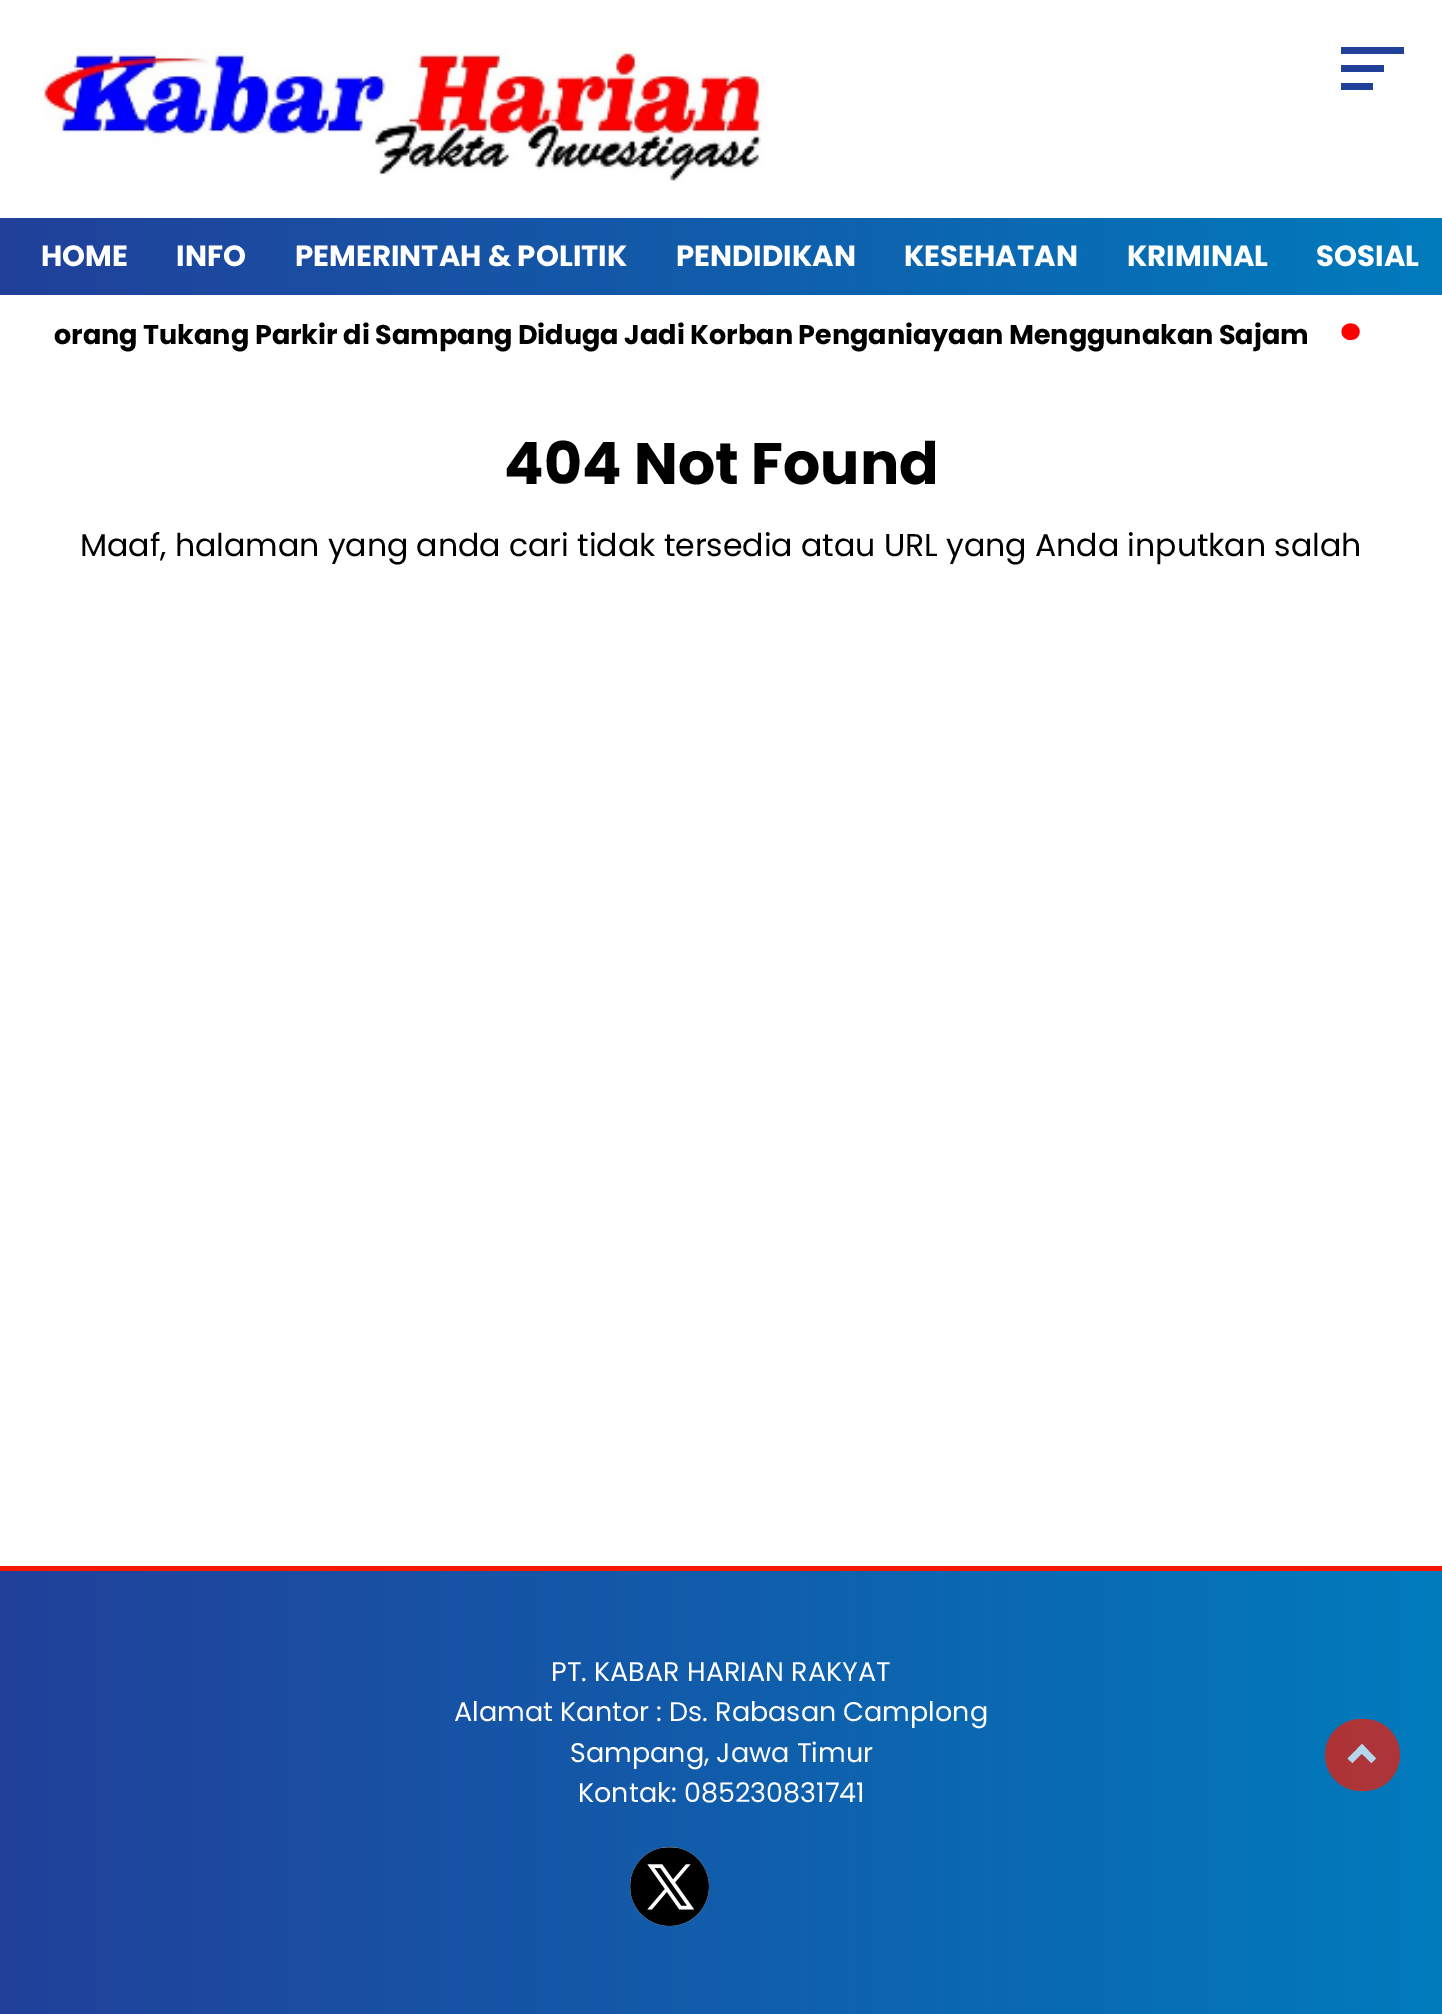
%!PS-Adobe-3.0
%%BoundingBox: 0 0 1442 2014
%%LanguageLevel: 3
%%Pages: 1
%%EndComments
%%BeginProlog
/m { moveto } bind def
/l { lineto } bind def
/h { closepath } bind def
/f { fill } bind def
/q { gsave } bind def
/Q { grestore } bind def
/fn { [ exch dup neg 0 0 3 -1 roll 0 0 ] selectfont } def
/tx { moveto show } def
/bx { rectfill } def
/al { dup .setfillconstantalpha .setstrokeconstantalpha } def
/rr { 5 dict begin { /r /h /w /y /x } { exch def } forall
  x r add y moveto x w add y 2 copy h add r arct x w add y h add x 1 index r arct
  x y h add x y r arct x y 2 copy exch w add exch r arct closepath end } def
/im { 5 dict begin { /h /w /y /x /name } { exch def } forall
  gsave x y translate w h scale
  w h 8 [w 0 0 h 0 0] name (r) file false 3 colorimage grestore end } def
%%EndProlog
%%BeginSetup
<< /PageSize [1442 2014] /PageUsesTransparency true >> setpagedevice
%%EndSetup
%%Page: 1 1
0 .pushpdf14devicefilter
0 2014 translate 1 -1 scale
4 setmiterlimit
1 setgray
0 0 1442 2014 bx
(image0.raw) 44 47 723 134 im
0.129 0.251 0.604 setrgbcolor
1341 47 63 7 bx
1341 65 43 7 bx
1341 83 32 7 bx
q 0 218 m 1442 218 l 1442 295 l 0 295 l h clip newpath
<< /ShadingType 2 /ColorSpace /DeviceRGB /Coords [0 257 1442 256] /Extend [true true] /Function << /FunctionType 2 /Domain [0 1] /C0 [0.129 0.251 0.604] /C1 [0.004 0.482 0.741] /N 1 >> >> shfill Q
/Poppins-Bold 29.25 fn
1 setgray
(HOME) 41 266 tx
(INFO) 176 266 tx
(PEMERINTAH & POLITIK) 295 266 tx
(PENDIDIKAN) 676 266 tx
(KESEHATAN) 904 266 tx
(KRIMINAL) 1127 266 tx
(SOSIAL) 1316 266 tx
/Poppins-Bold 27 fn
0 setgray
(orang Tukang Parkir di Sampang Diduga Jadi Korban Penganiayaan Menggunakan Sajam) 54 344 tx
/Poppins-Bold 90 fn
1 0 0 setrgbcolor
(·) 1337 360 tx
/Poppins-Bold 58.5 fn
0 setgray
(404 Not Found) 504 484 tx
/Poppins-Regular 31.5 fn
(Maaf, halaman yang anda cari tidak tersedia atau URL yang Anda inputkan salah) 80 556 tx
q 0 1571 m 1442 1571 l 1442 2014 l 0 2014 l h clip newpath
<< /ShadingType 2 /ColorSpace /DeviceRGB /Coords [0 1964 1442 1964] /Extend [true true] /Function << /FunctionType 2 /Domain [0 1] /C0 [0.129 0.251 0.604] /C1 [0.004 0.482 0.741] /N 1 >> >> shfill Q
0.961 0.09 0 setrgbcolor
0 1566 1442 5 bx
/Poppins-Regular 27 fn
1 setgray
(PT. KABAR HARIAN RAKYAT) 551 1681 tx
(Alamat Kantor : Ds. Rabasan Camplong) 454 1721 tx
(Sampang, Jawa Timur) 570 1762 tx
(Kontak: 085230831741) 578 1802 tx
0.7 al
0.961 0.09 0 setrgbcolor
1325 1719 75 72 36 rr f
1 al
0.702 0.839 0.922 setrgbcolor
1352.5 1763 m 1347.5 1758.5 l 1362 1744 l 1366.5 1749 l h f
0.702 0.843 0.922 setrgbcolor
1371.5 1763 m 1357 1749 l 1362 1744 l 1376 1758.5 l h f
(image1.raw) 630 1847 79 79 im
.poppdf14devicefilter showpage
%%EOF
